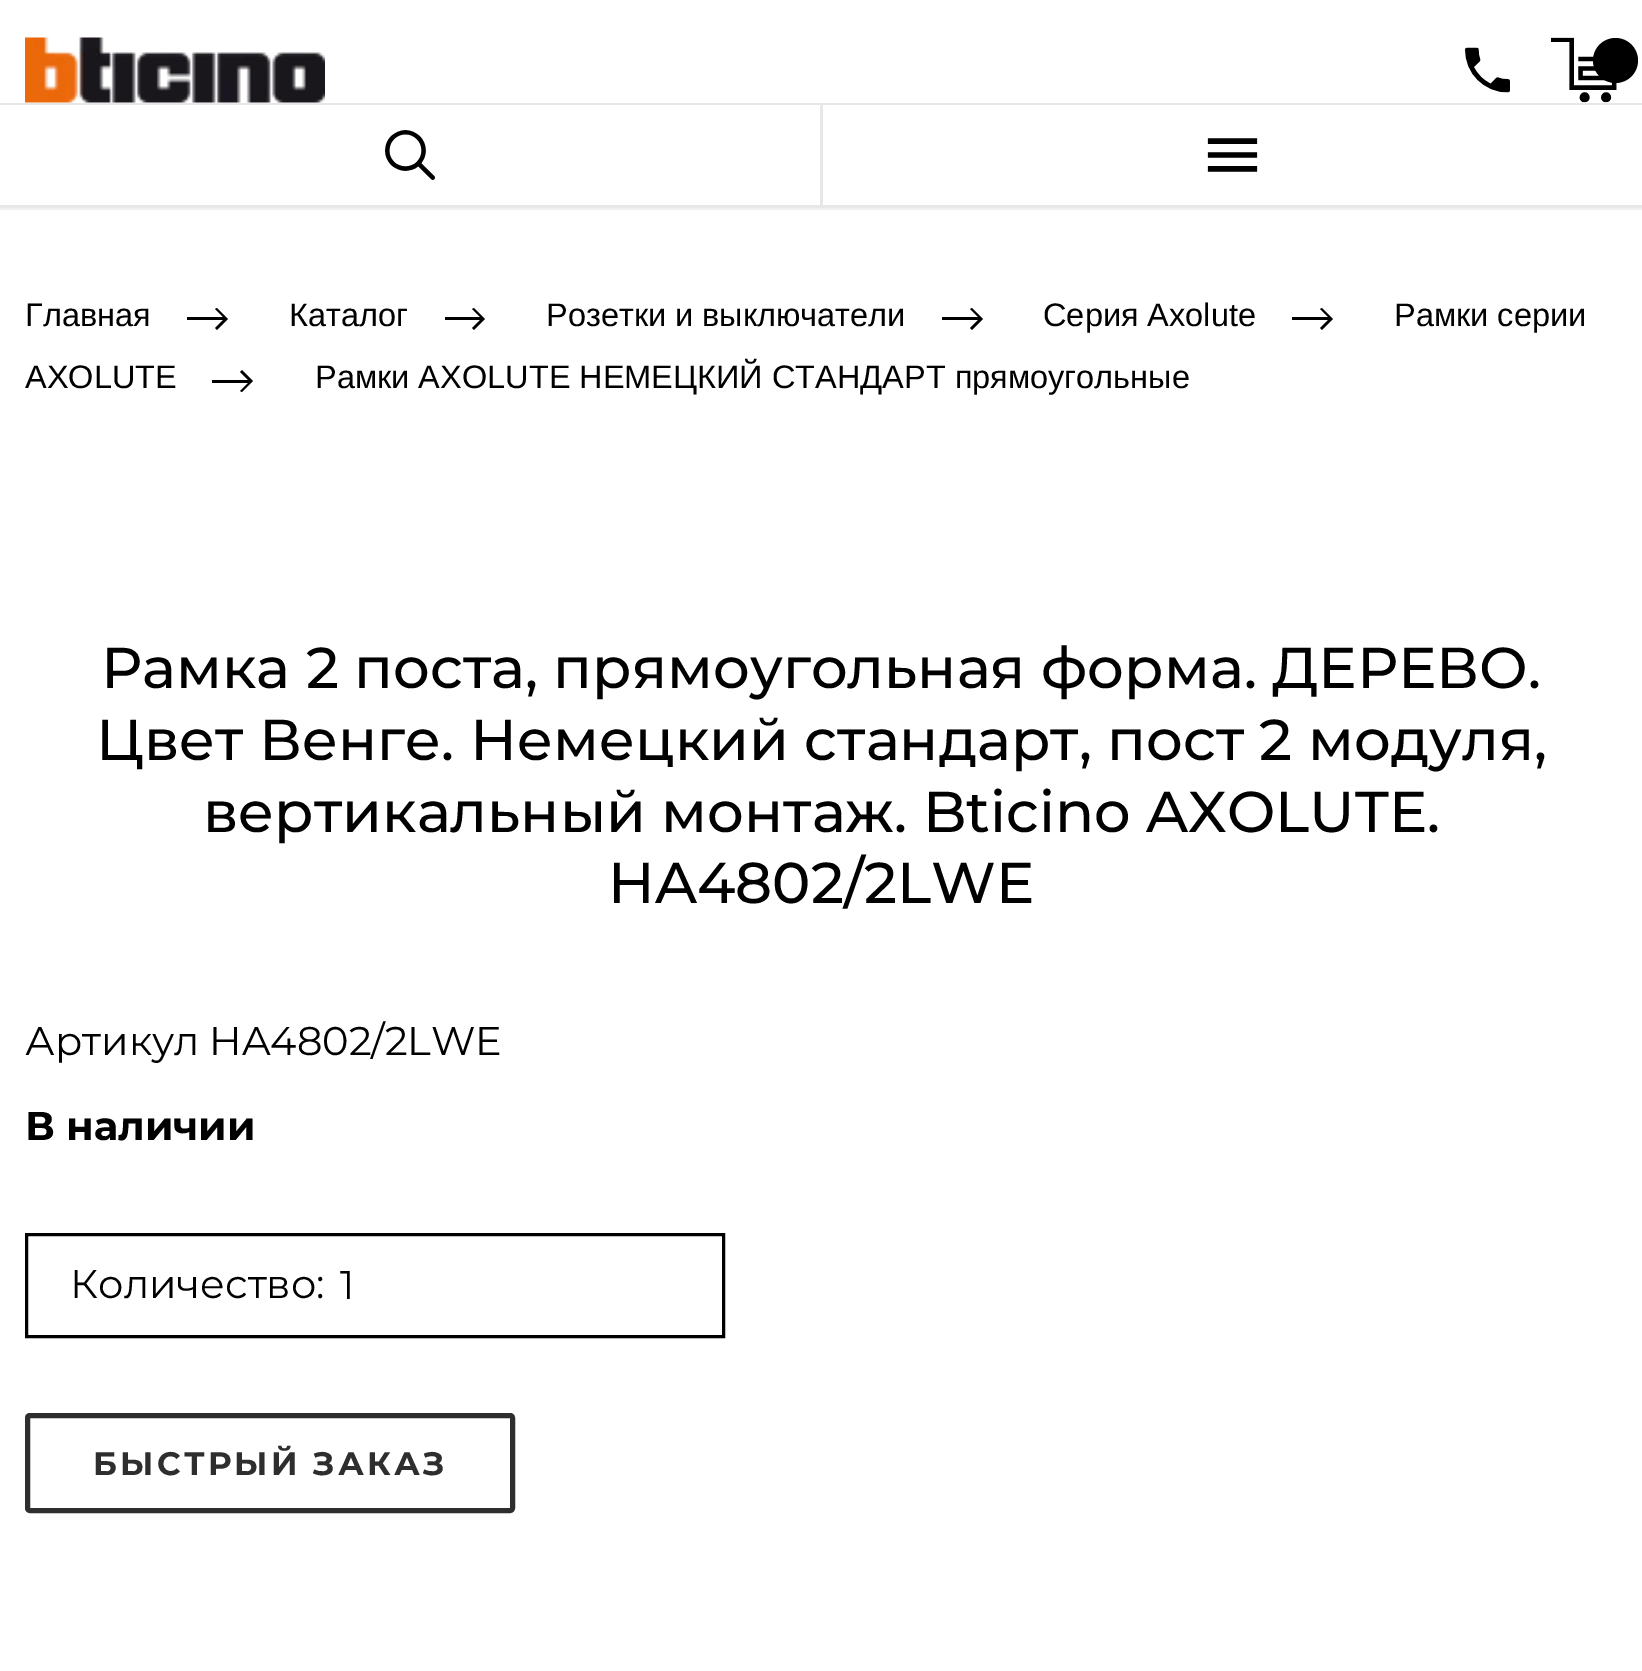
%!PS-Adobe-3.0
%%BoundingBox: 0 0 1642 1671
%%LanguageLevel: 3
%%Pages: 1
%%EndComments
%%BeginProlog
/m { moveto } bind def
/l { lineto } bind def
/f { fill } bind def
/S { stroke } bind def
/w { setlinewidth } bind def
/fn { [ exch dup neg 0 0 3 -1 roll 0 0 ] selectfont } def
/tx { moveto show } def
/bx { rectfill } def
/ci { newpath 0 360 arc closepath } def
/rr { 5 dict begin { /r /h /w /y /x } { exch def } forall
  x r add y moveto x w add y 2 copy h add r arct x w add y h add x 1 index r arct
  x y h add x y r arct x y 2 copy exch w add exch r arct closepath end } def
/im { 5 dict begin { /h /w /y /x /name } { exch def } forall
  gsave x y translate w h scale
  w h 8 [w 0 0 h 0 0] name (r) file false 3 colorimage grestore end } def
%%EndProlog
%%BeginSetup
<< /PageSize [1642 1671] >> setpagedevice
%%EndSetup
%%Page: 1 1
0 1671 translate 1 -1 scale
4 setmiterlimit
1 setgray
0 0 1642 1671 bx
(image0.raw) 25 37 300 66 im
(image1.raw) 1465 47 45 46 im
(image2.raw) 1551 37 66 66 im
0 setgray
1615.5 60.5 22.5 ci f
0.906 setgray
0 103 1642 105 bx
1 setgray
0 105 820 100 bx
(image3.raw) 385 130 50 50 im
823 105 819 100 bx
(image4.raw) 1207 138 51 34 im
0.941 setgray
0 208 1642 2 bx
/LiberationSans-Regular 32.5 fn
0 setgray
(Главная) 25 326 tx
217 308 m 215 309 l 223 317 l 187 317 l 187 320 l 223 320 l 215 328 l 217 330 l 228 319 l 217 308 l f
(Каталог) 289 326 tx
474 308 m 472 309 l 480 317 l 445 317 l 445 320 l 480 320 l 472 328 l 474 330 l 485 319 l 474 308 l f
(Розетки и выключатели) 546 326 tx
972 308 m 970 309 l 978 317 l 942 317 l 942 320 l 978 320 l 970 328 l 972 330 l 983 319 l 972 308 l f
(Серия Axolute) 1043 326 tx
1322 308 m 1320 309 l 1328 317 l 1292 317 l 1292 320 l 1328 320 l 1320 328 l 1322 330 l 1333 319 l 1322 308 l f
(Рамки серии) 1394 326 tx
(AXOLUTE) 25 388 tx
242 370 m 240 372 l 248 380 l 212 380 l 212 383 l 248 383 l 240 391 l 242 392 l 253 381 l 242 370 l f
(Рамки AXOLUTE НЕМЕЦКИЙ СТАНДАРТ прямоугольные) 315 388 tx
/Montserrat-Medium 57.5 fn
(Рамка 2 поста, прямоугольная форма. ДЕРЕВО.) 101 688 tx
(Цвет Венге. Немецкий стандарт, пост 2 модуля,) 96 760 tx
(вертикальный монтаж. Bticino AXOLUTE.) 203 832 tx
(HA4802/2LWE) 608 903 tx
/Montserrat-Regular 40 fn
(Артикул) 25 1055 tx
(HA4802/2LWE) 209 1055 tx
/Montserrat-Bold 40 fn
(В наличии) 25 1140 tx
3 w
26.5 1234.5 697 102 rectstroke
/Montserrat-Regular 40 fn
(Количество:) 70 1298 tx
(1) 340 1299 tx
0.18 setgray
5 w
27.5 1415.5 485 95 2.5 rr S
/Montserrat-Bold 32.5 fn
93 1475 m 3.25 0 (БЫСТРЫЙ ЗАКАЗ) ashow
showpage
%%EOF
